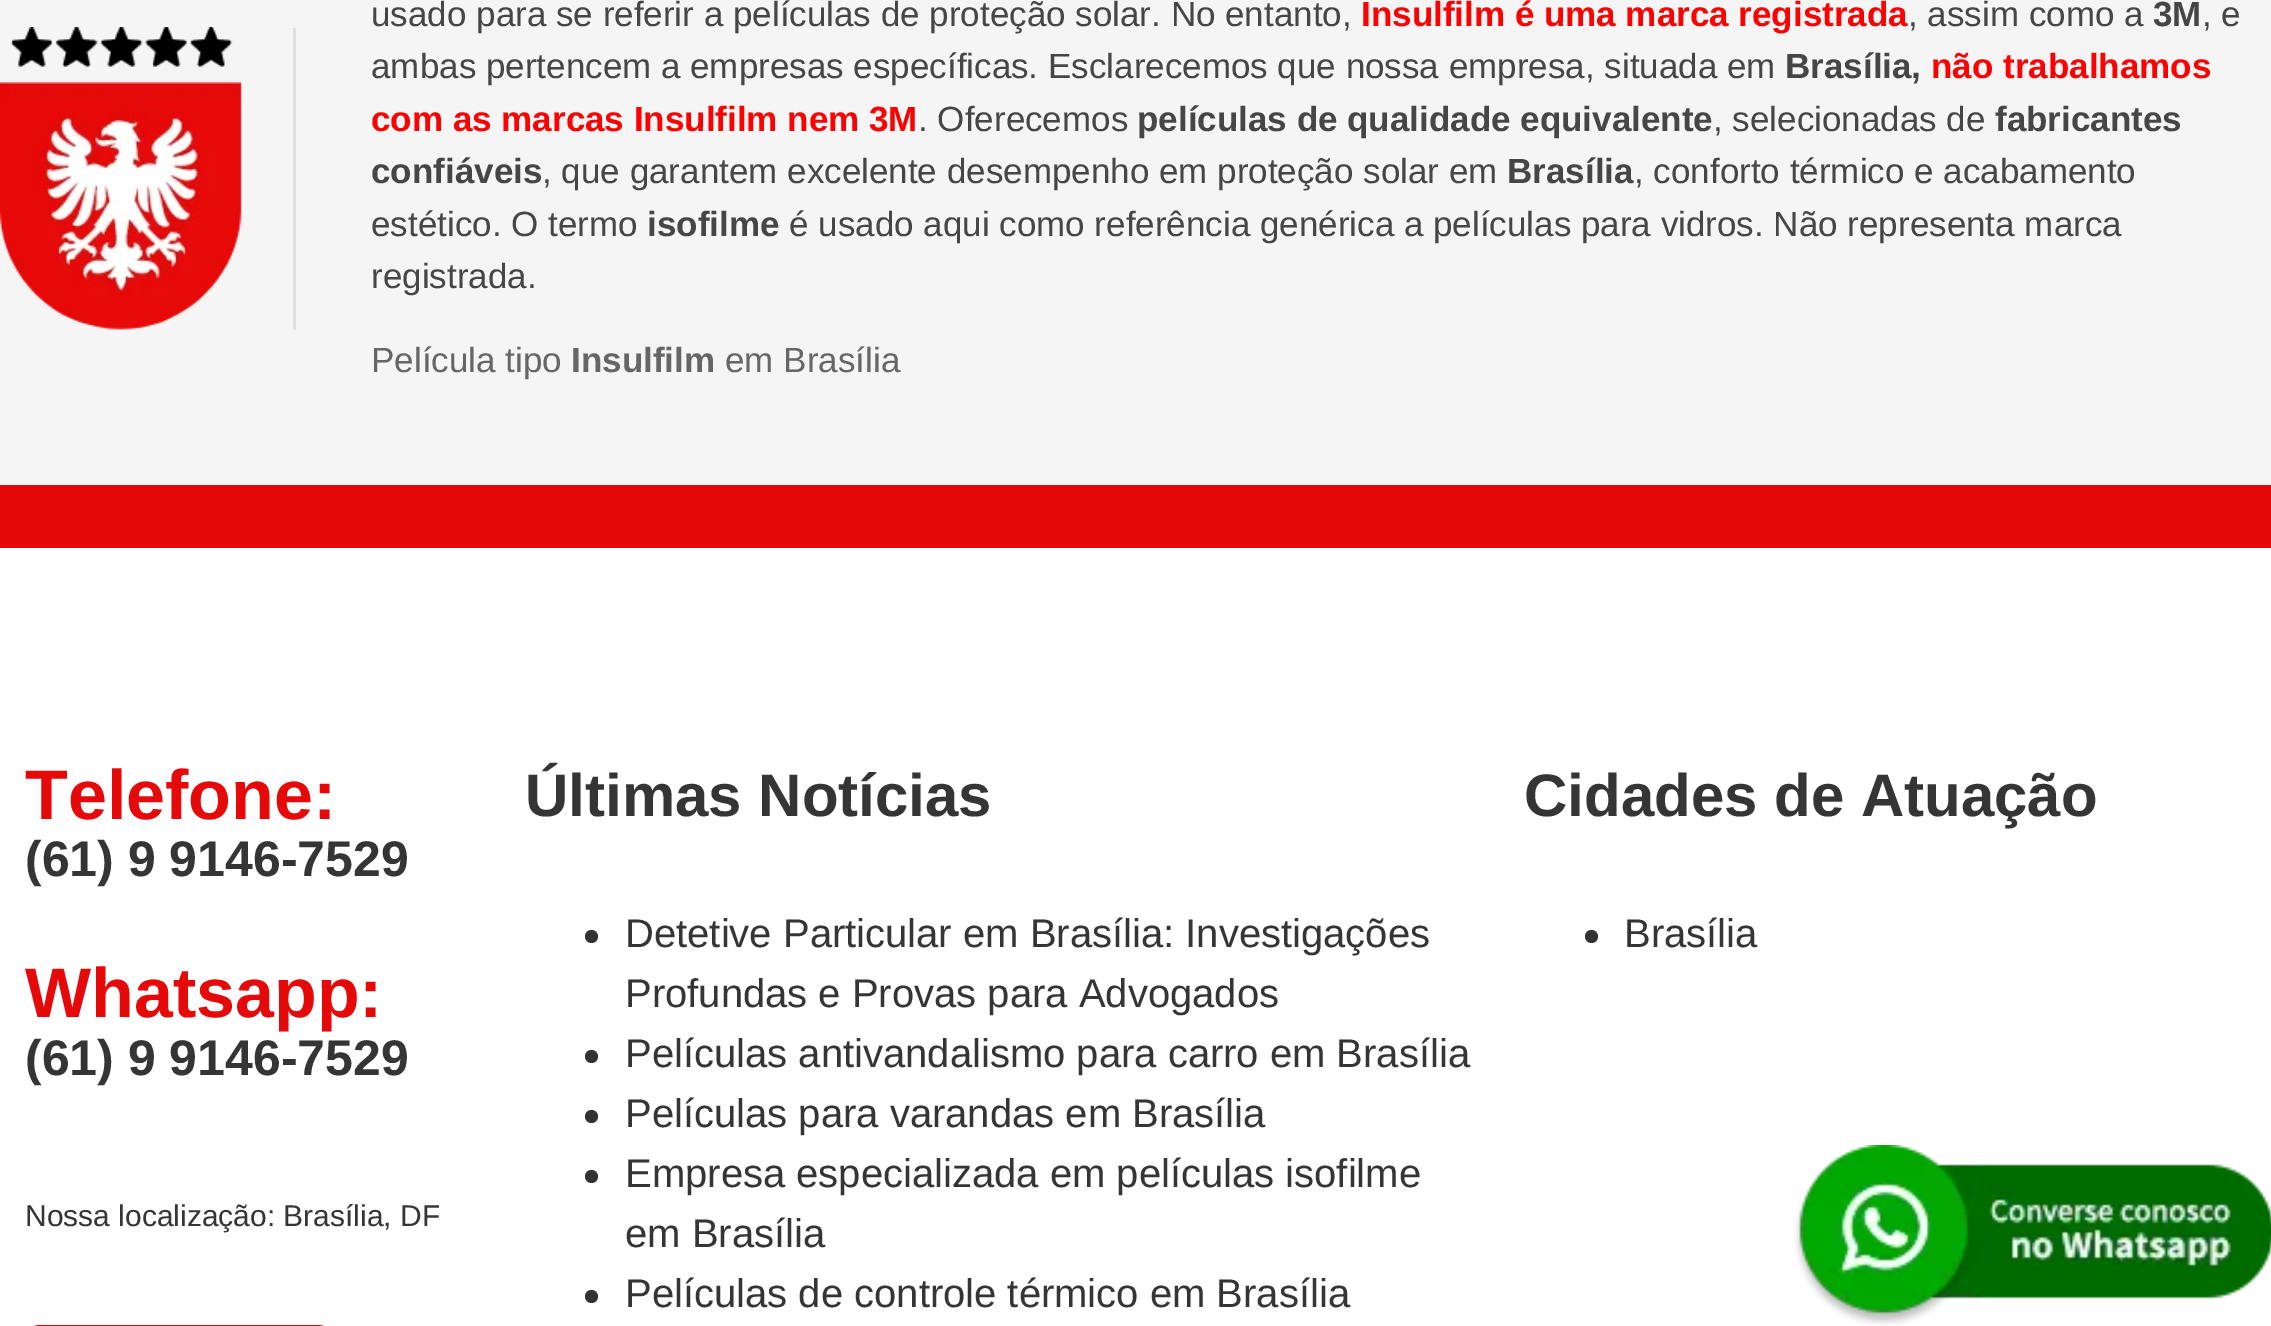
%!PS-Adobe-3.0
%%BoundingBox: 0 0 2271 1326
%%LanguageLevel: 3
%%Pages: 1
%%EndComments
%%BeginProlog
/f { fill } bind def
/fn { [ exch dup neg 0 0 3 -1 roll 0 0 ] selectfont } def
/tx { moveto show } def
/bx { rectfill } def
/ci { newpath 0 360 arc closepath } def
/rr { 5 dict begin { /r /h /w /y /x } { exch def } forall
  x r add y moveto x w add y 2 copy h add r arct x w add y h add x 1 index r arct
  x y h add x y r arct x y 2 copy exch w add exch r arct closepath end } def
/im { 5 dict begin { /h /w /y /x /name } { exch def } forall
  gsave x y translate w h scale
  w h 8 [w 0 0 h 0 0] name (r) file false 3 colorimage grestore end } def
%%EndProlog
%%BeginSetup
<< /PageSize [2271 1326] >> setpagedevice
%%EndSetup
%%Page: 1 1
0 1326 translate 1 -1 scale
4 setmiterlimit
1 setgray
0 0 2271 1326 bx
0.961 setgray
0 0 2271 485 bx
0.878 setgray
293 28 3 302 bx
(image0.raw) 0 27 242 303 im
/LiberationSans-Regular 35 fn
0.275 setgray
(usado para se referir a películas de proteção solar. No entanto,) 371 26 tx
/LiberationSans-Bold 35 fn
1 0 0 setrgbcolor
(Insulfilm é uma marca registrada) 1361 26 tx
/LiberationSans-Regular 35 fn
0.275 setgray
(, assim como a) 1908 26 tx
/LiberationSans-Bold 35 fn
(3M) 2153 26 tx
/LiberationSans-Regular 35 fn
(, e) 2202 26 tx
(ambas pertencem a empresas específicas. Esclarecemos que nossa empresa, situada em) 371 78 tx
/LiberationSans-Bold 35 fn
(Brasília,) 1785 78 tx
1 0 0 setrgbcolor
(não trabalhamos) 1931 78 tx
(com as marcas Insulfilm nem 3M) 371 131 tx
/LiberationSans-Regular 35 fn
0.275 setgray
(. Oferecemos) 918 131 tx
/LiberationSans-Bold 35 fn
(películas de qualidade equivalente) 1137 131 tx
/LiberationSans-Regular 35 fn
(, selecionadas de) 1713 131 tx
/LiberationSans-Bold 35 fn
(fabricantes) 1995 131 tx
(confiáveis) 371 183 tx
/LiberationSans-Regular 35 fn
(, que garantem excelente desempenho em proteção solar em) 542 183 tx
/LiberationSans-Bold 35 fn
(Brasília) 1507 183 tx
/LiberationSans-Regular 35 fn
(, conforto térmico e acabamento) 1634 183 tx
(estético. O termo) 371 236 tx
/LiberationSans-Bold 35 fn
(isofilme) 647 236 tx
/LiberationSans-Regular 35 fn
(é usado aqui como referência genérica a películas para vidros. Não representa marca) 789 236 tx
(registrada.) 371 288 tx
0.4 setgray
(Película tipo) 371 372 tx
/LiberationSans-Bold 35 fn
(Insulfilm) 571 372 tx
/LiberationSans-Regular 35 fn
(em Brasília) 725 372 tx
0.902 0.035 0.035 setrgbcolor
0 485 2271 63 bx
/LiberationSans-Bold 70 fn
(Telefone:) 25 819 tx
/LiberationSans-Bold 50 fn
0.208 setgray
(\(61\) 9 9146-7529) 25 876 tx
/LiberationSans-Bold 70 fn
0.902 0.035 0.035 setrgbcolor
(Whatsapp:) 25 1017 tx
/LiberationSans-Bold 50 fn
0.208 setgray
(\(61\) 9 9146-7529) 25 1075 tx
/LiberationSans-Regular 30 fn
(Nossa localização: Brasília, DF) 25 1226 tx
0.902 0.035 0.035 setrgbcolor
25 1325 308 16 15 rr f
/LiberationSans-Bold 60 fn
0.208 setgray
(Últimas Notícias) 525 816 tx
0.2 setgray
591.5 936.5 6.5 ci f
/LiberationSans-Regular 40 fn
0.208 setgray
(Detetive Particular em Brasília: Investigações) 625 947 tx
(Profundas e Provas para Advogados) 625 1007 tx
0.2 setgray
591.5 1056.5 6.5 ci f
0.208 setgray
(Películas antivandalismo para carro em Brasília) 625 1067 tx
0.2 setgray
591.5 1116.5 6.5 ci f
0.208 setgray
(Películas para varandas em Brasília) 625 1127 tx
0.2 setgray
591.5 1176.5 6.5 ci f
0.208 setgray
(Empresa especializada em películas isofilme) 625 1187 tx
(em Brasília) 625 1247 tx
0.2 setgray
591.5 1296.5 6.5 ci f
0.208 setgray
(Películas de controle térmico em Brasília) 625 1307 tx
/LiberationSans-Bold 60 fn
(Cidades de Atuação) 1524 816 tx
0.2 setgray
1591.5 936.5 6.5 ci f
/LiberationSans-Regular 40 fn
0.208 setgray
(Brasília) 1624 947 tx
(image1.raw) 1794 1145 477 181 im
showpage
%%EOF
